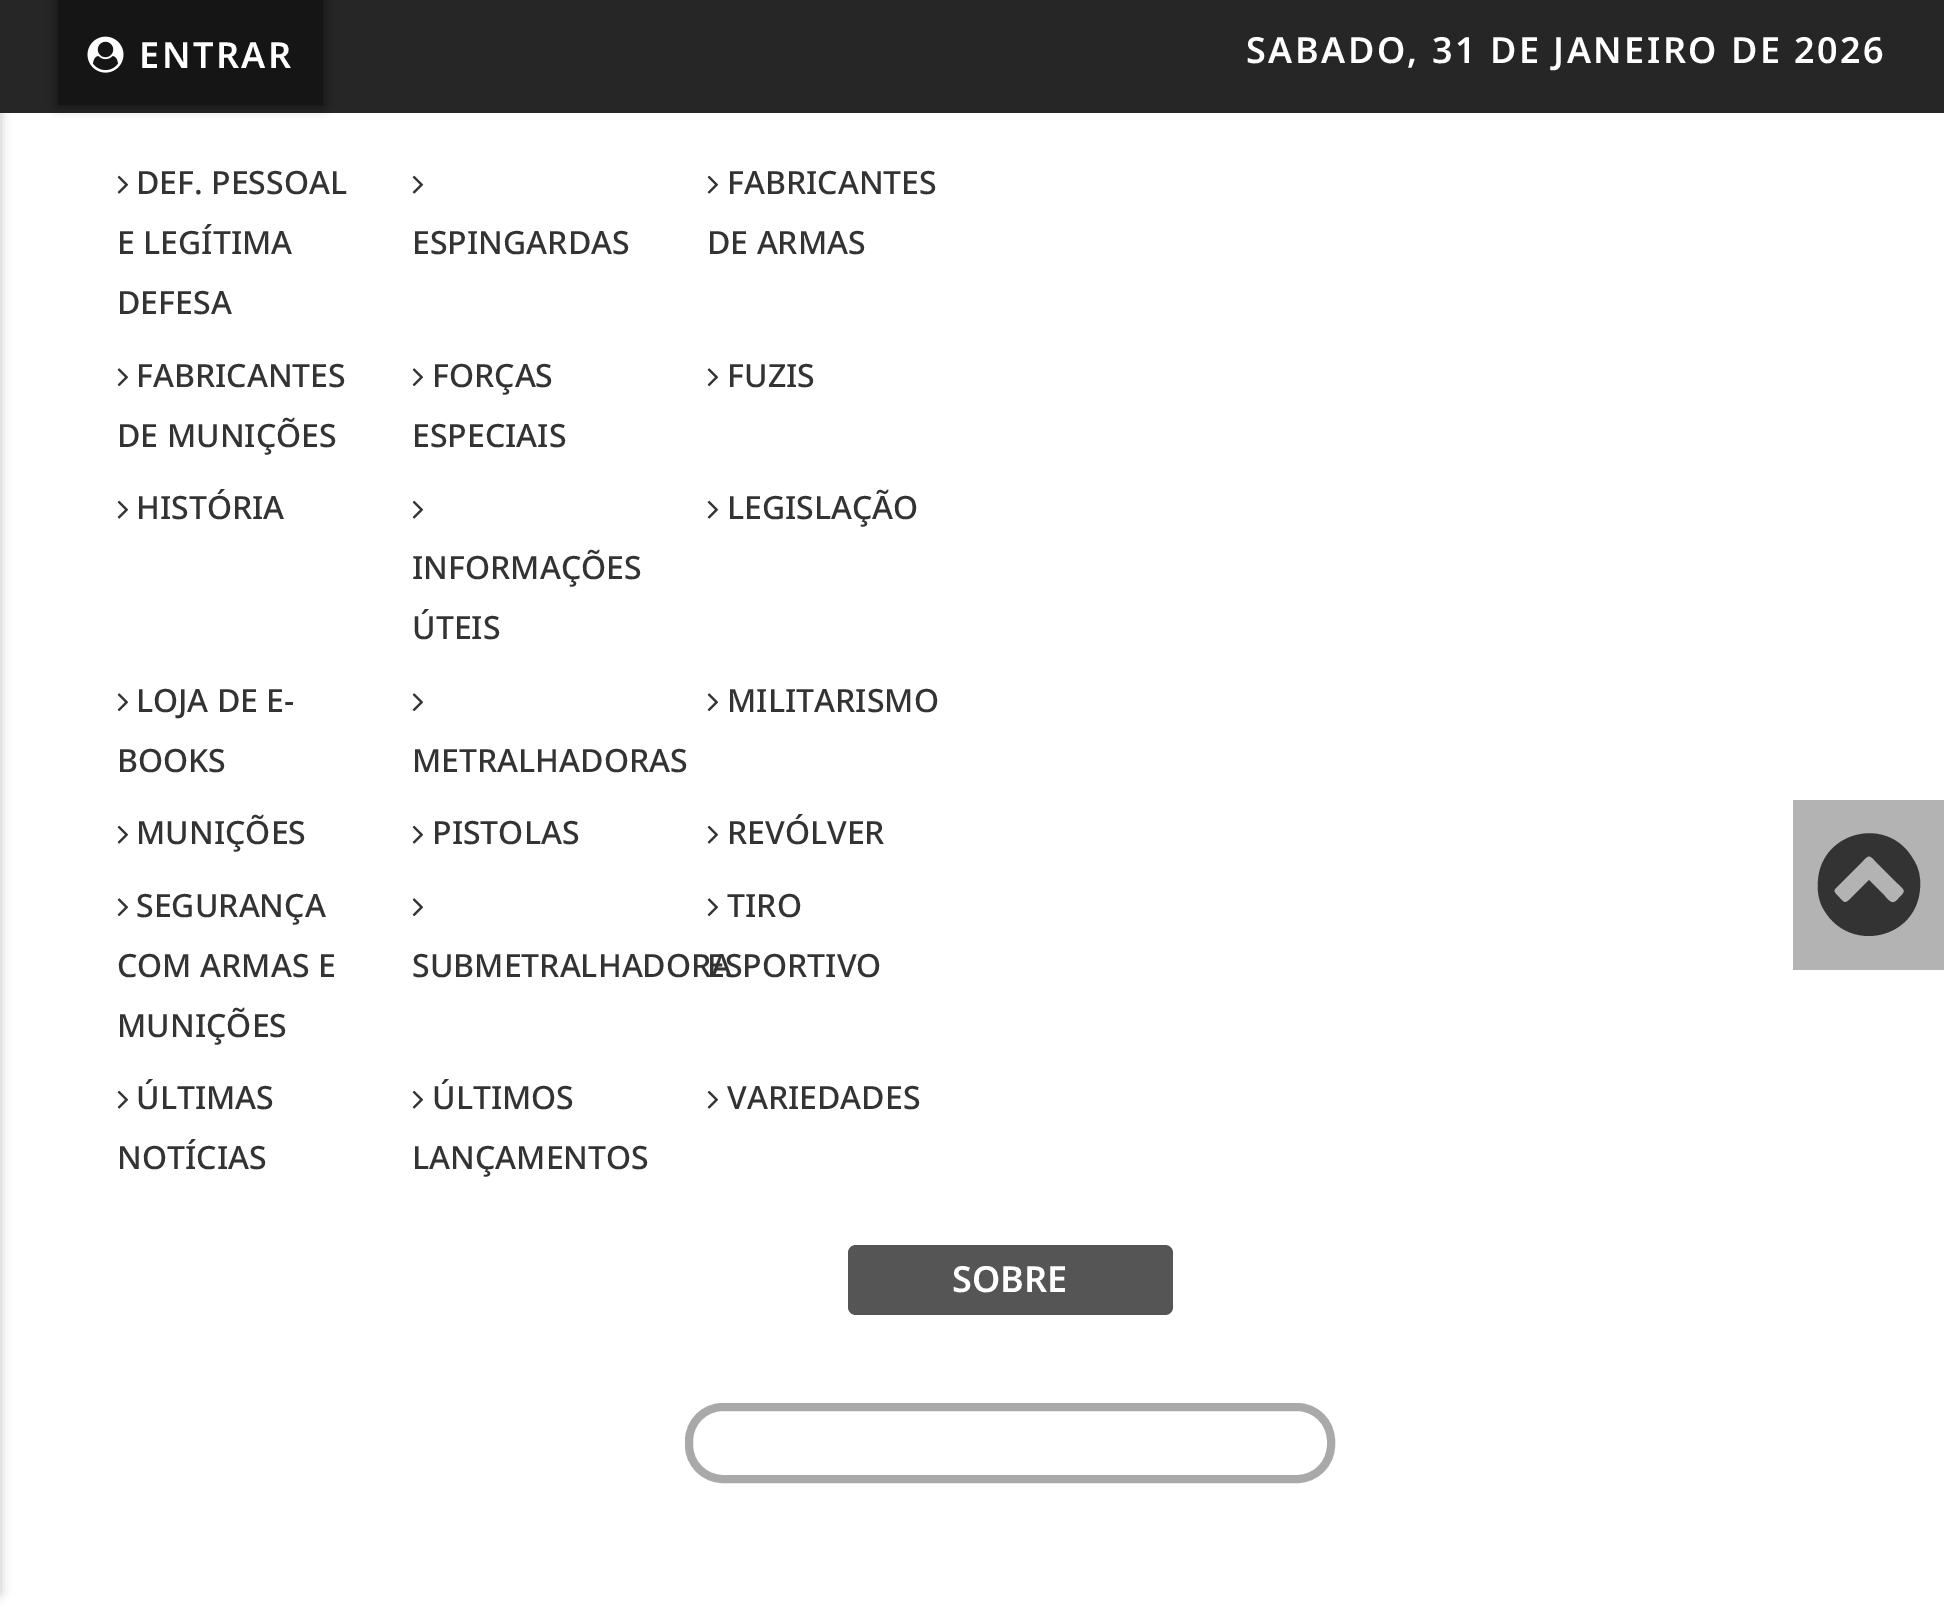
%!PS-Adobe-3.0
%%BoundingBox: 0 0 1944 1607
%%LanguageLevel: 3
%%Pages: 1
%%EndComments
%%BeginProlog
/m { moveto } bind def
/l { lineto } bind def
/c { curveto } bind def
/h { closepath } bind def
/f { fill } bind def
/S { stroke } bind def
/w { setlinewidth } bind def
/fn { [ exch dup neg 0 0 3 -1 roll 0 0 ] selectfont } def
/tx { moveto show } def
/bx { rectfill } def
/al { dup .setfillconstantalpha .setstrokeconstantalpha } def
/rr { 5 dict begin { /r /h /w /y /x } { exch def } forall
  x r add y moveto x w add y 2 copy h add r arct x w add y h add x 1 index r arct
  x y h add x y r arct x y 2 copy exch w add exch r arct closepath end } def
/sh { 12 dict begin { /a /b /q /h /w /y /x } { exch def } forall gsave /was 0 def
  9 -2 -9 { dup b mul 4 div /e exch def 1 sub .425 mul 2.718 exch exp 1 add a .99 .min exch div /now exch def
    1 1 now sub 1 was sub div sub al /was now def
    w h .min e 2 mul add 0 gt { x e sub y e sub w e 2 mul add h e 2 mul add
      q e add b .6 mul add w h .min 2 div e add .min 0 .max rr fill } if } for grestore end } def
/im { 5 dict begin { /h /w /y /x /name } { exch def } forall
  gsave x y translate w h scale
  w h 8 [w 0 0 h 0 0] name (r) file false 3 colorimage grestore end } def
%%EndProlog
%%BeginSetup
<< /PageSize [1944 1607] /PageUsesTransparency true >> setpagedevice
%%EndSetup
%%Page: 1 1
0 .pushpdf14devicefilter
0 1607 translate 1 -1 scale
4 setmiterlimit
1 setgray
0 0 1944 1607 bx
0 setgray
-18 15 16 1578 0 6 0.35 sh
0.149 setgray
0 0 1944 113 bx
0 setgray
58 0 265 105 0 6 0.5 sh
0.082 setgray
58 0 265 105 bx
(image0.raw) 87 36 37 37 im
/NotoSans-SemiBold 36 fn
1 setgray
139 68 m 2.5 0 (ENTRAR) ashow
/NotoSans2-SemiBold 36 fn
1246 63 m 2.5 0 (SABADO, 31 DE JANEIRO DE 2026) ashow
(image1.raw) 117 175 12 19 im
/NotoSans-Medium 32 fn
0.2 setgray
(DEF. PESSOAL) 136 194 tx
(E LEGÍTIMA) 117 254 tx
(DEFESA) 117 314 tx
(image1.raw) 412 175 12 19 im
(ESPINGARDAS) 412 254 tx
(image1.raw) 707 175 12 19 im
(FABRICANTES) 727 194 tx
(DE ARMAS) 707 254 tx
(image2.raw) 117 368 12 19 im
(FABRICANTES) 136 387 tx
(DE MUNIÇÕES) 117 447 tx
(image2.raw) 412 368 12 19 im
(FORÇAS) 432 387 tx
(ESPECIAIS) 412 447 tx
(image2.raw) 707 368 12 19 im
(FUZIS) 727 387 tx
(image1.raw) 117 500 12 19 im
(HISTÓRIA) 136 519 tx
(image1.raw) 707 500 12 19 im
(LEGISLAÇÃO) 727 519 tx
(image1.raw) 412 500 12 19 im
(INFORMAÇÕES) 412 579 tx
(ÚTEIS) 412 639 tx
(image2.raw) 117 693 12 19 im
(LOJA DE E-) 136 712 tx
(BOOKS) 117 772 tx
(image2.raw) 707 693 12 19 im
(MILITARISMO) 727 712 tx
(image2.raw) 412 693 12 19 im
(METRALHADORAS) 412 772 tx
(image1.raw) 117 825 12 19 im
(MUNIÇÕES) 136 844 tx
(image1.raw) 412 825 12 19 im
(PISTOLAS) 432 844 tx
(image1.raw) 707 825 12 19 im
(REVÓLVER) 727 844 tx
(image2.raw) 117 898 12 19 im
(SEGURANÇA) 136 917 tx
(COM ARMAS E) 117 977 tx
(MUNIÇÕES) 117 1037 tx
(image2.raw) 412 898 12 19 im
(SUBMETRALHADORA) 412 977 tx
(image2.raw) 707 898 12 19 im
(TIRO) 727 917 tx
(ESPORTIVO) 707 977 tx
(image1.raw) 117 1090 12 19 im
(ÚLTIMAS) 136 1109 tx
(NOTÍCIAS) 117 1169 tx
(image1.raw) 412 1090 12 19 im
(ÚLTIMOS) 432 1109 tx
(LANÇAMENTOS) 412 1169 tx
(image1.raw) 707 1090 12 19 im
(VARIEDADES) 727 1109 tx
0.333 setgray
848 1245 325 70 8 rr f
/NotoSans-SemiBold 36 fn
1 setgray
(SOBRE) 952 1292 tx
0.663 setgray
8 w
689 1407 642 72 34 rr S
0.702 setgray
1793 800 151 170 bx
0.2 setgray
1896 901 m 1908 889 1906 892 1892 878 c 1877 863 l 1869 854 1869 854 1861 863 c 1836 888 l 1832 891 1836 894 1838 896 c 1844 903 1845 905 1852 897 c 1869 880 l 1883 894 l 1885 896 1891 906 1896 901 c h 1913 859 m 1919 868 1921 878 1920 888 c 1917 939 1850 954 1824 910 c 1819 902 1817 891 1818 881 c 1821 831 1888 815 1913 859 c h f
.poppdf14devicefilter showpage
%%EOF
